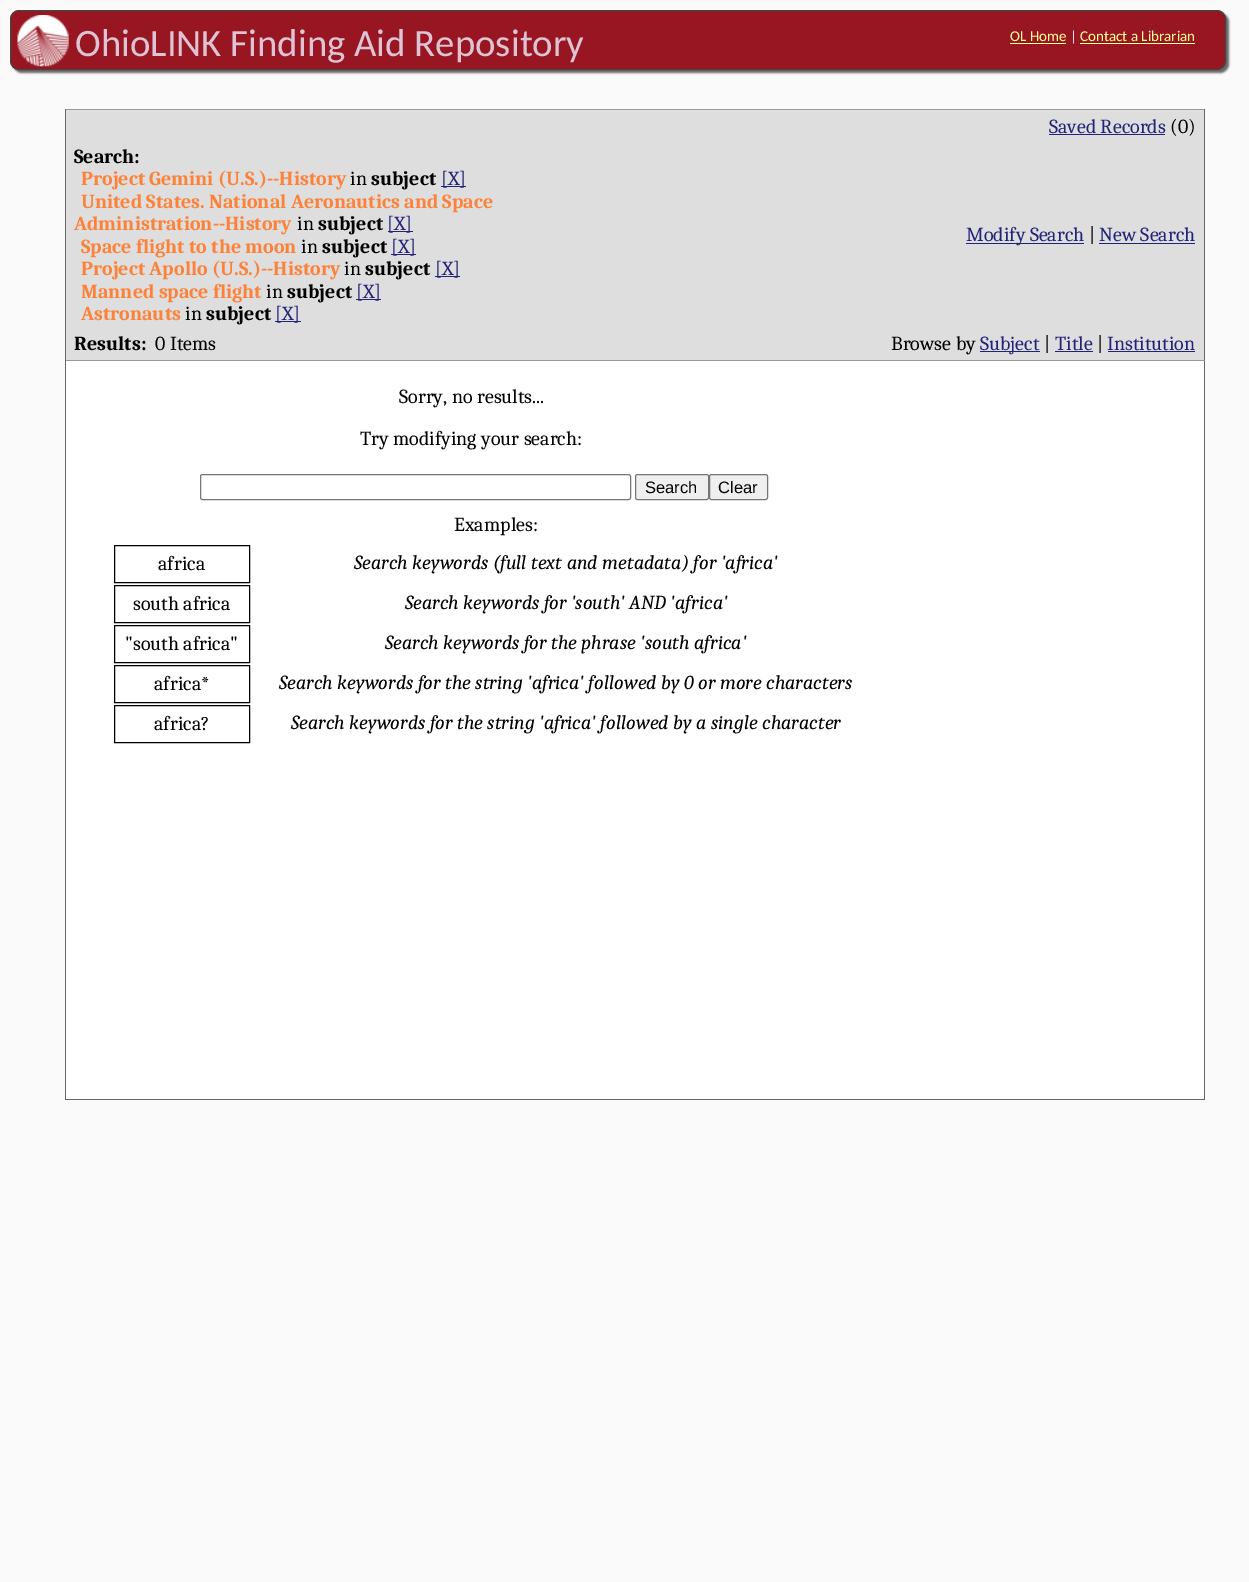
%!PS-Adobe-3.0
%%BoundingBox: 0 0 1249 1582
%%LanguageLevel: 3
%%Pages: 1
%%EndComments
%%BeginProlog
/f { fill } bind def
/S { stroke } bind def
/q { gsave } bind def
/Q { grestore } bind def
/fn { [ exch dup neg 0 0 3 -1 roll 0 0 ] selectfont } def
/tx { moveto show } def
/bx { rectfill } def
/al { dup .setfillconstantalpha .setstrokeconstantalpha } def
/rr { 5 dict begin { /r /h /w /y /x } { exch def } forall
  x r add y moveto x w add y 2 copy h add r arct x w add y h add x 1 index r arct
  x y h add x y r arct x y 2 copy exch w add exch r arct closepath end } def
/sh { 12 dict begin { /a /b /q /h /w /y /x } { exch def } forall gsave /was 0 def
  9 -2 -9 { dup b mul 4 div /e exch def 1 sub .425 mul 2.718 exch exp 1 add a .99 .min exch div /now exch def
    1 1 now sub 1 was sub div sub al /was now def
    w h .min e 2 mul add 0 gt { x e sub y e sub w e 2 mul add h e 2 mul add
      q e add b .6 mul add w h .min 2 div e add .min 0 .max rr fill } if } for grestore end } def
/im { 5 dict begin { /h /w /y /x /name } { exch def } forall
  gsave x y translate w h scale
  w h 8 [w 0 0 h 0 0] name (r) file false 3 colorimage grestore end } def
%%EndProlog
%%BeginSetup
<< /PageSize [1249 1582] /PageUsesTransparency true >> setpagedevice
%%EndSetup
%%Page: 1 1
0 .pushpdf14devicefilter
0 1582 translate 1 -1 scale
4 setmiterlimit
0.98 setgray
0 0 1249 1582 bx
0.4 setgray
13 13 1216 60 9 1 1 sh
0.596 0.086 0.133 setrgbcolor
10.5 10.5 1215 59 8.5 rr q f Q
0.267 setgray
S
(image0.raw) 17 15 52 52 im
/Carlito-Regular 38.75 fn
0.867 0.765 0.827 setrgbcolor
(OhioLINK Finding Aid Repository) 75 56 tx
/Carlito-Regular 15 fn
1 1 0.6 setrgbcolor
(OL Home) 1010 41 tx
1010 43 56 1 bx
0.867 setgray
(|) 1070 41 tx
1 1 0.6 setrgbcolor
(Contact a Librarian) 1080 41 tx
1080 43 115 1 bx
0.871 0.871 0.875 setrgbcolor
66 110 1138 250 bx
0.6 setgray
65 109 1140 1 bx
0.4 setgray
1204 109 1 991 bx
0.6 setgray
65 360 1140 1 bx
0.4 setgray
65 109 1 252 bx
/Caladea-Regular 20 fn
0.133 0.133 0.467 setrgbcolor
(Saved Records) 1049 133 tx
1049 134 116 1 bx
0 setgray
(\(0\)) 1170 133 tx
/Caladea-Bold 20 fn
(Search:) 74 163 tx
0.992 0.51 0.224 setrgbcolor
(Project Gemini \(U.S.\)--History) 81 185 tx
/Caladea-Regular 20 fn
0 setgray
(in) 350 185 tx
/Caladea-Bold 20 fn
(subject) 371 185 tx
0.133 0.133 0.467 setrgbcolor
441 186 25 1 bx
/Caladea-Regular 20 fn
([X]) 441 185 tx
/Caladea-Bold 20 fn
0.992 0.51 0.224 setrgbcolor
(United States. National Aeronautics and Space) 81 208 tx
(Administration--History) 74 230 tx
/Caladea-Regular 20 fn
0 setgray
(in) 297 230 tx
/Caladea-Bold 20 fn
(subject) 318 230 tx
0.133 0.133 0.467 setrgbcolor
388 231 25 1 bx
/Caladea-Regular 20 fn
([X]) 387 230 tx
/Caladea-Bold 20 fn
0.992 0.51 0.224 setrgbcolor
(Space flight to the moon) 81 253 tx
/Caladea-Regular 20 fn
0 setgray
(in) 301 253 tx
/Caladea-Bold 20 fn
(subject) 322 253 tx
0.133 0.133 0.467 setrgbcolor
391 254 25 1 bx
/Caladea-Regular 20 fn
([X]) 391 253 tx
/Caladea-Bold 20 fn
0.992 0.51 0.224 setrgbcolor
(Project Apollo \(U.S.\)--History) 81 275 tx
/Caladea-Regular 20 fn
0 setgray
(in) 344 275 tx
/Caladea-Bold 20 fn
(subject) 365 275 tx
0.133 0.133 0.467 setrgbcolor
435 276 25 1 bx
/Caladea-Regular 20 fn
([X]) 435 275 tx
/Caladea-Bold 20 fn
0.992 0.51 0.224 setrgbcolor
(Manned space flight) 81 298 tx
/Caladea-Regular 20 fn
0 setgray
(in) 266 298 tx
/Caladea-Bold 20 fn
(subject) 287 298 tx
0.133 0.133 0.467 setrgbcolor
356 299 25 1 bx
/Caladea-Regular 20 fn
([X]) 356 298 tx
/Caladea-Bold 20 fn
0.992 0.51 0.224 setrgbcolor
(Astronauts) 81 320 tx
/Caladea-Regular 20 fn
0 setgray
(in) 185 320 tx
/Caladea-Bold 20 fn
(subject) 206 320 tx
0.133 0.133 0.467 setrgbcolor
275 321 26 1 bx
/Caladea-Regular 20 fn
([X]) 275 320 tx
966 243 118 1 bx
(Modify Search) 966 241 tx
0 setgray
(|) 1089 241 tx
0.133 0.133 0.467 setrgbcolor
(New Search) 1099 241 tx
1099 243 96 1 bx
/Caladea-Bold 20 fn
0 setgray
(Results:) 74 350 tx
/Caladea-Regular 20 fn
(0 Items) 155 350 tx
(Browse by) 891 350 tx
0.133 0.133 0.467 setrgbcolor
980 351 60 1 bx
(Subject) 980 350 tx
0 setgray
(|) 1044 350 tx
0.133 0.133 0.467 setrgbcolor
(Title) 1055 350 tx
1055 351 38 1 bx
0 setgray
(|) 1097 350 tx
0.133 0.133 0.467 setrgbcolor
(Institution) 1107 350 tx
1108 351 87 1 bx
1 setgray
66 361 1138 738 bx
0.4 setgray
65 1099 1140 1 bx
65 361 1 739 bx
0 setgray
(Sorry, no results...) 399 403 tx
(Try modifying your search:) 360 445 tx
0.463 setgray
200.5 474.5 430 25 2 rr S
0.937 setgray
635.5 474.5 73 25 2 rr q f Q
0.463 setgray
S
/LiberationSans-Regular 16.5 fn
0 setgray
(Search) 645 493 tx
0.937 setgray
709.5 474.5 58 25 2 rr q f Q
0.463 setgray
S
0 setgray
(Clear) 718 493 tx
/Caladea-Regular 20 fn
(Examples:) 454 531 tx
114.5 545.5 135 37 rectstroke
(africa) 158 570 tx
/Caladea-Italic 20 fn
(Search keywords \(full text and metadata\) for 'africa') 354 569 tx
114.5 585.5 135 37 rectstroke
/Caladea-Regular 20 fn
(south africa) 133 610 tx
/Caladea-Italic 20 fn
(Search keywords for 'south' AND 'africa') 405 609 tx
114.5 625.5 135 37 rectstroke
/Caladea-Regular 20 fn
("south africa") 125 650 tx
/Caladea-Italic 20 fn
(Search keywords for the phrase 'south africa') 385 649 tx
114.5 665.5 135 37 rectstroke
/Caladea-Regular 20 fn
(africa*) 154 690 tx
/Caladea-Italic 20 fn
(Search keywords for the string 'africa' followed by 0 or more characters) 279 689 tx
114.5 705.5 135 37 rectstroke
/Caladea-Regular 20 fn
(africa?) 154 730 tx
/Caladea-Italic 20 fn
(Search keywords for the string 'africa' followed by a single character) 291 729 tx
.poppdf14devicefilter showpage
%%EOF
